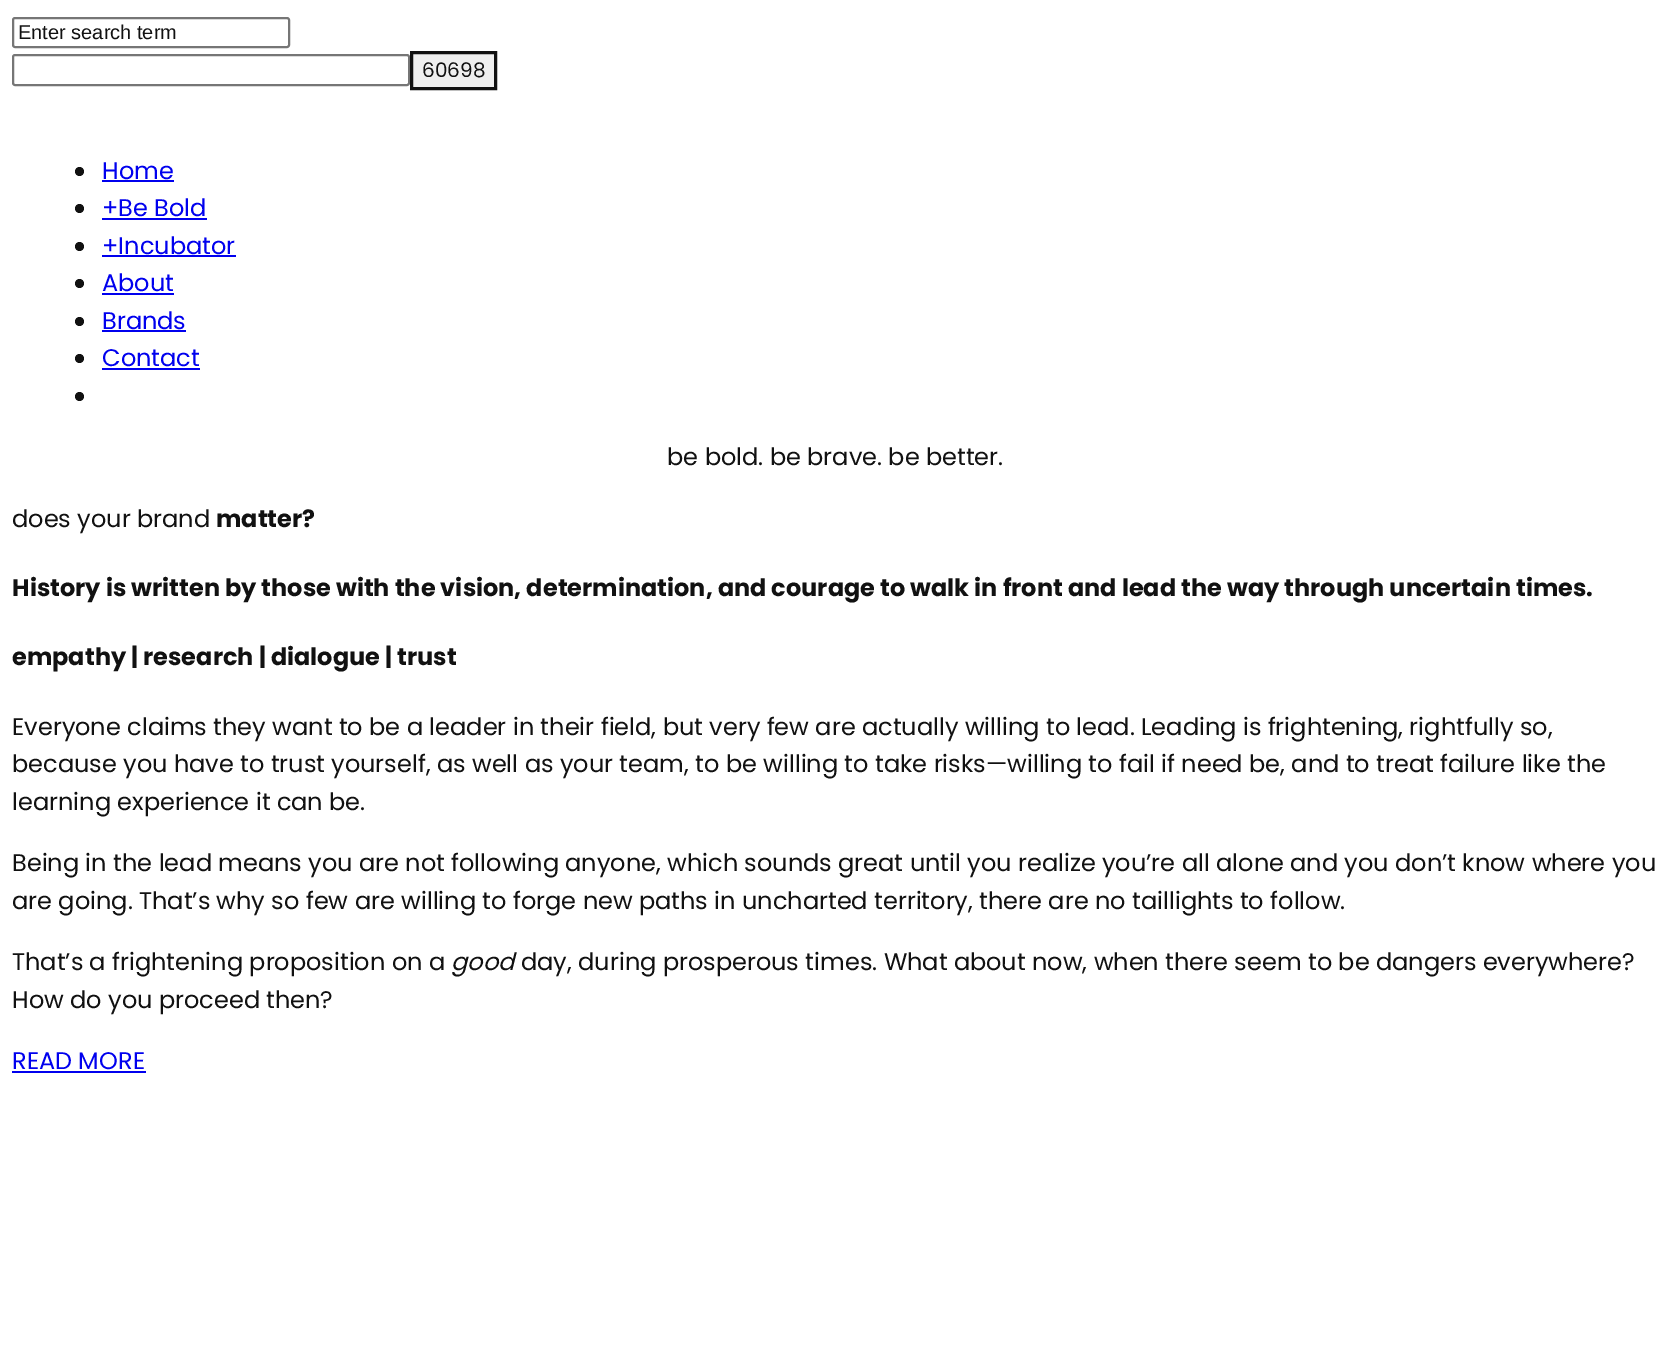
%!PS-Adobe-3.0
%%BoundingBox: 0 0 1669 1355
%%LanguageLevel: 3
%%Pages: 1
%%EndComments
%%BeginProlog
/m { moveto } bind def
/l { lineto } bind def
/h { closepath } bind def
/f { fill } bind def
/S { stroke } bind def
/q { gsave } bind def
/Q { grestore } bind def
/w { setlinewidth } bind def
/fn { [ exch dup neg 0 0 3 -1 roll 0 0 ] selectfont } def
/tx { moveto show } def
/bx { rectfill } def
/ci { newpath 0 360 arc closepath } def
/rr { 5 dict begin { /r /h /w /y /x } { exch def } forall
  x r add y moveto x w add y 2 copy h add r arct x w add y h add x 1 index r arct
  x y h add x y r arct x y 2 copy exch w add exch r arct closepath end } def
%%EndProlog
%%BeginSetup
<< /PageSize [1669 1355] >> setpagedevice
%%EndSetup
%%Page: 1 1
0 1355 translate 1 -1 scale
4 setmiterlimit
1 setgray
0 0 1669 1355 bx
0.463 setgray
2 w
13 18 276 29 2 rr S
/LiberationSans-Regular 20 fn
0.067 setgray
(Enter search term) 18 39 tx
0.463 setgray
13 55 396 30 2 rr S
0.937 setgray
411.5 52.5 m 495.5 52.5 l 495.5 88.5 l 411.5 88.5 l h q f Q
0.067 setgray
3 w
S
/Poppins-Regular 20 fn
(60698) 422 77 tx
79.5 171.5 4.5 ci f
/Poppins-Regular 24 fn
0 0 0.933 setrgbcolor
(Home) 102 179 tx
102 180 72 2 bx
0.067 setgray
79.5 208.5 4.5 ci f
0 0 0.933 setrgbcolor
(+Be Bold) 102 216 tx
102 218 105 2 bx
0.067 setgray
79.5 246.5 4.5 ci f
0 0 0.933 setrgbcolor
(+Incubator) 102 254 tx
102 255 134 2 bx
0.067 setgray
79.5 283.5 4.5 ci f
0 0 0.933 setrgbcolor
(About) 102 291 tx
102 293 72 2 bx
0.067 setgray
79.5 321.5 4.5 ci f
0 0 0.933 setrgbcolor
(Brands) 102 329 tx
102 330 84 2 bx
0.067 setgray
79.5 358.5 4.5 ci f
0 0 0.933 setrgbcolor
(Contact) 102 366 tx
102 368 98 2 bx
0.067 setgray
79.5 396.5 4.5 ci f
(be bold. be brave. be better.) 667 465 tx
(does your brand) 12 527 tx
/Poppins-Bold 24 fn
(matter?) 216 527 tx
(History is written by those with the vision, determination, and courage to walk in front and lead the way through uncertain times.) 12 596 tx
(empathy | research | dialogue | trust) 12 665 tx
/Poppins-Regular 24 fn
(Everyone claims they want to be a leader in their field, but very few are actually willing to lead. Leading is frightening, rightfully so,) 12 735 tx
(because you have to trust yourself, as well as your team, to be willing to take risks—willing to fail if need be, and to treat failure like the) 12 772 tx
(learning experience it can be.) 12 810 tx
(Being in the lead means you are not following anyone, which sounds great until you realize you’re all alone and you don’t know where you) 12 871 tx
(are going. That’s why so few are willing to forge new paths in uncharted territory, there are no taillights to follow.) 12 909 tx
(That’s a frightening proposition on a) 12 970 tx
/Poppins-Italic 24 fn
(good) 451 970 tx
/Poppins-Regular 24 fn
(day, during prosperous times. What about now, when there seem to be dangers everywhere?) 521 970 tx
(How do you proceed then?) 12 1008 tx
0 0 0.933 setrgbcolor
(READ MORE) 12 1069 tx
12 1071 134 2 bx
showpage
%%EOF
